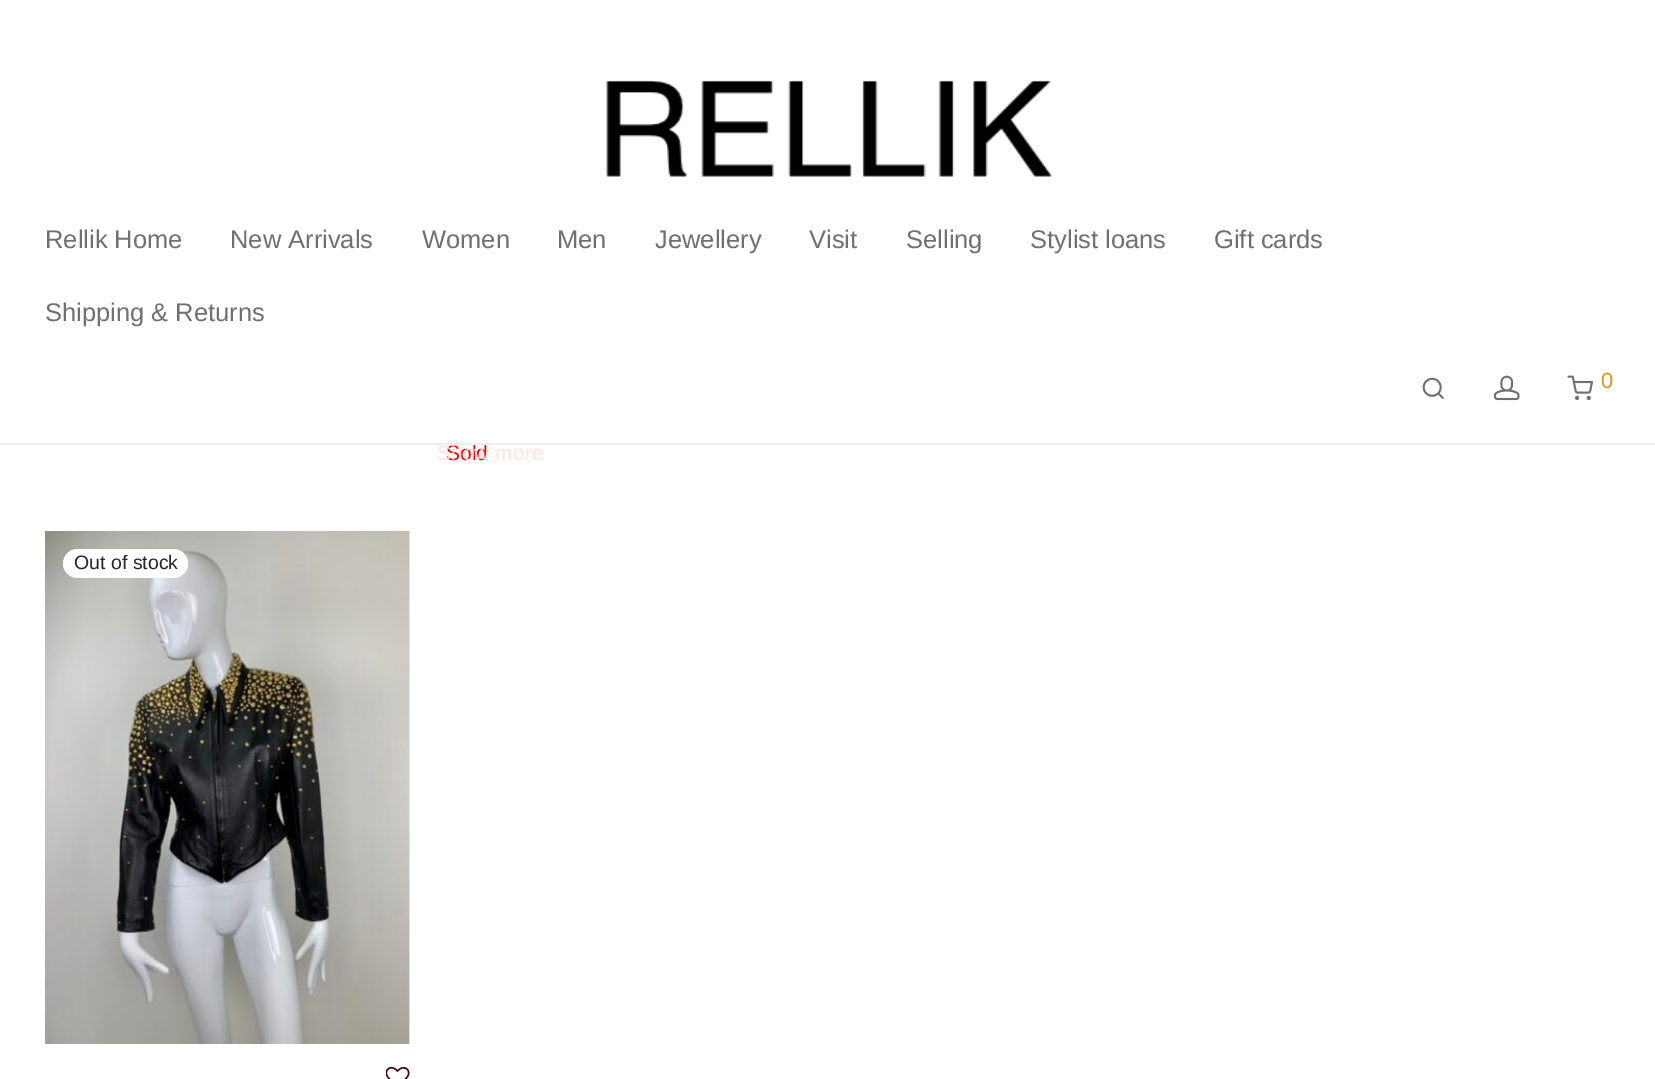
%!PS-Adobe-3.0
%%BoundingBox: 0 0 1655 1079
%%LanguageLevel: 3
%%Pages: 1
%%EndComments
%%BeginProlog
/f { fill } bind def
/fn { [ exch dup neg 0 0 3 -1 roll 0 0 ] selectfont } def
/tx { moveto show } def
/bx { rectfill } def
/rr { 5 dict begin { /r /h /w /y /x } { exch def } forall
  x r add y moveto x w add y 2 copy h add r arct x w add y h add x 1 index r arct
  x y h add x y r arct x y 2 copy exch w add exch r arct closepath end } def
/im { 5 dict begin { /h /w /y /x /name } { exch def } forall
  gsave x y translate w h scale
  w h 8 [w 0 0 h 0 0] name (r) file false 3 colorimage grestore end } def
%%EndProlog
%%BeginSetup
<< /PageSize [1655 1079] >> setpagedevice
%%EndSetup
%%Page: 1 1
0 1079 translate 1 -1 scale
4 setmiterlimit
1 setgray
0 0 1655 1079 bx
/LiberationSans-Regular 21 fn
1 0 0 setrgbcolor
(Sold) 446 460 tx
1 0.886 0.886 setrgbcolor
(Show more) 437 460 tx
0.933 setgray
0 443 1655 2 bx
(image0.raw) 606 80 447 97 im
/LiberationSans-Regular 25.5 fn
0.439 setgray
(Rellik Home) 45 248 tx
(New Arrivals) 230 248 tx
(Women) 422 248 tx
(Men) 557 248 tx
(Jewellery) 655 248 tx
(Visit) 809 248 tx
(Selling) 906 248 tx
(Stylist loans) 1030 248 tx
(Gift cards) 1214 248 tx
(Shipping & Returns) 45 321 tx
(image1.raw) 1422 377 22 22 im
(image2.raw) 1494 375 26 26 im
(image3.raw) 1567 375 26 25 im
/LiberationSans-Regular 22 fn
0.863 0.596 0.078 setrgbcolor
(0) 1601 388 tx
0.933 setgray
409 531 1 513 bx
(image4.raw) 45 531 365 513 im
1 setgray
63 549 125 29 14.5 rr f
/LiberationSans-Regular 19.5 fn
0.157 setgray
(Out of stock) 74 569 tx
(image5.raw) 386 1066 24 13 im
showpage
%%EOF
